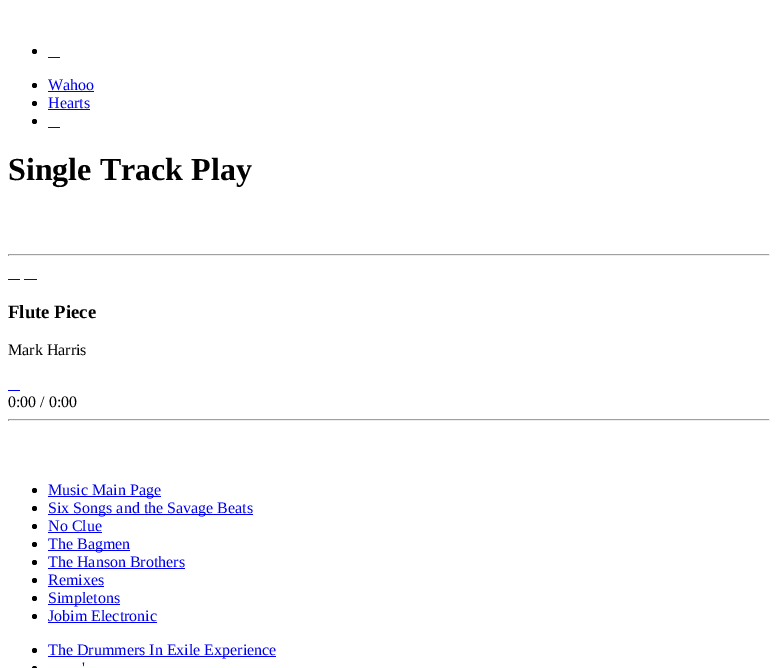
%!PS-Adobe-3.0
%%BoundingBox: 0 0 778 668
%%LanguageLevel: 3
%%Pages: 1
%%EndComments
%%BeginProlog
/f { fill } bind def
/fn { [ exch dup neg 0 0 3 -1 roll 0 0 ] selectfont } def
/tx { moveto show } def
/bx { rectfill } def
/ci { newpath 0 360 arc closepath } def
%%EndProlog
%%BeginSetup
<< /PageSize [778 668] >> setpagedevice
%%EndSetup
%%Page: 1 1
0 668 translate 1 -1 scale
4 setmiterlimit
1 setgray
0 0 778 668 bx
0 setgray
34.5 51.5 2.5 ci f
0 0 0.933 setrgbcolor
48 57 12 1 bx
0 setgray
34.5 85.5 2.5 ci f
/LiberationSerif-Regular 16 fn
0 0 0.933 setrgbcolor
(Wahoo) 48 90 tx
48 91 46 1 bx
0 setgray
34.5 103.5 2.5 ci f
0 0 0.933 setrgbcolor
(Hearts) 48 108 tx
48 109 42 1 bx
0 setgray
34.5 121.5 2.5 ci f
0 0 0.933 setrgbcolor
48 127 12 1 bx
/LiberationSerif-Bold 32 fn
0 setgray
(Single Track Play) 8 180 tx
0.624 setgray
8 254 762 1 bx
0.933 setgray
769 254 1 2 bx
8 255 762 1 bx
0.624 setgray
8 254 1 2 bx
0 0 0.933 setrgbcolor
8 279 12 1 bx
24 279 13 1 bx
/LiberationSerif-Bold 18.75 fn
0 setgray
(Flute Piece) 8 318 tx
/LiberationSerif-Regular 16 fn
(Mark Harris) 8 355 tx
0 0 0.933 setrgbcolor
8 390 12 1 bx
0 setgray
(0:00 / 0:00) 8 407 tx
0.624 setgray
8 419 762 1 bx
0.933 setgray
769 419 1 2 bx
8 420 762 1 bx
0.624 setgray
8 419 1 2 bx
0 setgray
34.5 490.5 2.5 ci f
0 0 0.933 setrgbcolor
48 496 113 1 bx
(Music Main Page) 48 495 tx
0 setgray
34.5 508.5 2.5 ci f
0 0 0.933 setrgbcolor
48 514 205 1 bx
(Six Songs and the Savage Beats) 48 513 tx
0 setgray
34.5 526.5 2.5 ci f
0 0 0.933 setrgbcolor
(No Clue) 48 531 tx
48 532 54 1 bx
0 setgray
34.5 544.5 2.5 ci f
0 0 0.933 setrgbcolor
48 550 82 1 bx
(The Bagmen) 48 549 tx
0 setgray
34.5 562.5 2.5 ci f
0 0 0.933 setrgbcolor
(The Hanson Brothers) 48 567 tx
48 568 137 1 bx
0 setgray
34.5 580.5 2.5 ci f
0 0 0.933 setrgbcolor
(Remixes) 48 585 tx
48 586 56 1 bx
0 setgray
34.5 598.5 2.5 ci f
0 0 0.933 setrgbcolor
48 604 72 1 bx
(Simpletons) 48 603 tx
0 setgray
34.5 616.5 2.5 ci f
0 0 0.933 setrgbcolor
(Jobim Electronic) 48 621 tx
48 622 109 1 bx
0 setgray
34.5 650.5 2.5 ci f
0 0 0.933 setrgbcolor
48 656 228 1 bx
(The Drummers In Exile Experience) 48 655 tx
(') 82 673 tx
0 setgray
34.5 668.5 2.5 ci f
showpage
%%EOF
